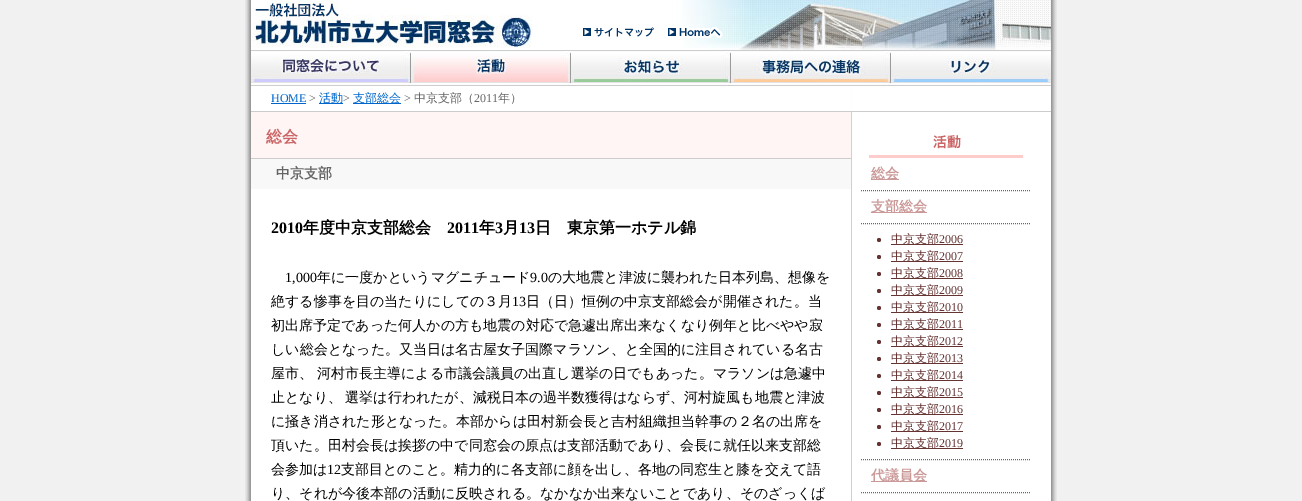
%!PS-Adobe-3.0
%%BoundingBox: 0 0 1302 501
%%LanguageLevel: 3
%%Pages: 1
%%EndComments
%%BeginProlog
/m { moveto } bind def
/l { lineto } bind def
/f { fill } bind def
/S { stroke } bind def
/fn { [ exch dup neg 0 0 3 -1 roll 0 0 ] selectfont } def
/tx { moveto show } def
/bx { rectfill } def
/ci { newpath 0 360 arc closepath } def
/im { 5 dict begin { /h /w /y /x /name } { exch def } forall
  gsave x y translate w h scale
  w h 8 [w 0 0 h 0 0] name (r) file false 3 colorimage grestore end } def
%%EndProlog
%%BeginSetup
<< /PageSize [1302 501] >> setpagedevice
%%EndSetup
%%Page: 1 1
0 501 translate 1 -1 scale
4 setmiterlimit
0.945 setgray
0 0 1302 501 bx
(image0.raw) 245 0 812 501 im
(image1.raw) 251 0 800 50 im
(image2.raw) 583 27 71 10 im
(image3.raw) 668 26 55 12 im
(image4.raw) 251 50 160 36 im
(image5.raw) 411 50 160 36 im
(image6.raw) 571 50 160 36 im
(image7.raw) 731 50 160 36 im
(image8.raw) 891 50 160 36 im
1 setgray
851 86 1 25 bx
0.8 setgray
251 111 800 1 bx
/LiberationSerif-Regular 12 fn
0 0.4 0.8 setrgbcolor
(HOME) 271 102 tx
271 103 35 1 bx
0.4 setgray
(>) 309 102 tx
0 0.4 0.8 setrgbcolor
319 103 24 1 bx
/WenQuanYiZenHei-Medium 12 fn
(活動) 319 102 tx
/LiberationSerif-Regular 12 fn
0.4 setgray
(>) 343 102 tx
0 0.4 0.8 setrgbcolor
353 103 48 1 bx
/WenQuanYiZenHei-Medium 12 fn
(支部総会) 353 102 tx
/LiberationSerif-Regular 12 fn
0.4 setgray
(>) 404 102 tx
/WenQuanYiZenHei-Medium 12 fn
(中京支部（) 414 102 tx
/LiberationSerif-Regular 12 fn
(2011) 474 102 tx
/WenQuanYiZenHei-Medium 12 fn
(年）) 498 102 tx
1 0.961 0.961 setrgbcolor
251 112 600 46 bx
0.8 setgray
251 158 600 1 bx
/WenQuanYiZenHei-Bold 16 fn
0.8 0.4 0.4 setrgbcolor
(総会) 266 142 tx
0.973 setgray
251 159 600 30 bx
/WenQuanYiZenHei-Bold 14 fn
0.4 setgray
(中京支部) 276 178 tx
/LiberationSerif-Bold 16 fn
0 setgray
(2010) 271 233 tx
/WenQuanYiZenHei-Bold 16 fn
(年度中京支部総会) 303 233 tx
/LiberationSerif-Bold 16 fn
(2011) 447 233 tx
/WenQuanYiZenHei-Bold 16 fn
(年) 479 233 tx
/LiberationSerif-Bold 16 fn
(3) 495 233 tx
/WenQuanYiZenHei-Bold 16 fn
(月) 503 233 tx
/LiberationSerif-Bold 16 fn
(13) 519 233 tx
/WenQuanYiZenHei-Bold 16 fn
(日　東京第一ホテル錦) 535 233 tx
/LiberationSerif-Regular 14 fn
(1,000) 285 282 tx
/WenQuanYiZenHei-Medium 14 fn
(年に一度かというマグニチュード) 317 282 tx
/LiberationSerif-Regular 14 fn
(9.0) 530 282 tx
/WenQuanYiZenHei-Medium 14 fn
(の大地震と津波に襲われた日本列島、想像を) 548 282 tx
(絶する惨事を目の当たりにしての３月) 271 306 tx
/LiberationSerif-Regular 14 fn
(13) 512 306 tx
/WenQuanYiZenHei-Medium 14 fn
(日（日）恒例の中京支部総会が開催された。当) 526 306 tx
(初出席予定であった何人かの方も地震の対応で急遽出席出来なくなり例年と比べやや寂) 271 330 tx
(しい総会となった。又当日は名古屋女子国際マラソン、と全国的に注目されている名古) 271 354 tx
(屋市、) 271 378 tx
(河村市長主導による市議会議員の出直し選挙の日でもあった。マラソンは急遽中) 317 378 tx
271 402 m -1 0 32 (止となり、 選挙は行われたが、減税日本の過半数獲得はならず、河村旋風も地震と津波) widthshow
(に掻き消された形となった。本部からは田村新会長と吉村組織担当幹事の２名の出席を) 271 426 tx
(頂いた。田村会長は挨拶の中で同窓会の原点は支部活動であり、会長に就任以来支部総) 271 450 tx
(会参加は) 271 474 tx
/LiberationSerif-Regular 14 fn
(12) 327 474 tx
/WenQuanYiZenHei-Medium 14 fn
(支部目とのこと。精力的に各支部に顔を出し、各地の同窓生と膝を交えて語) 341 474 tx
(り、それが今後本部の活動に反映される。なかなか出来ないことであり、そのざっくば) 271 498 tx
(image9.raw) 869 135 154 23 im
0.4 setgray
[1 1] 0 setdash
861 190.5 m 1031 190.5 l S
0.8 0.6 0.6 setrgbcolor
871 179 28 1 bx
/WenQuanYiZenHei-Bold 14 fn
(総会) 871 178 tx
0.4 setgray
861 223.5 m 1031 223.5 l S
0.8 0.6 0.6 setrgbcolor
871 212 56 1 bx
(支部総会) 871 211 tx
0.4 setgray
861 459.5 m 1031 459.5 l S
0.4 0.2 0.2 setrgbcolor
879 240 2 ci f
891 244 72 1 bx
/WenQuanYiZenHei-Medium 12 fn
(中京支部) 891 243 tx
/LiberationSerif-Regular 12 fn
(2006) 939 243 tx
879 257 2 ci f
891 261 72 1 bx
/WenQuanYiZenHei-Medium 12 fn
(中京支部) 891 260 tx
/LiberationSerif-Regular 12 fn
(2007) 939 260 tx
879 274 2 ci f
891 278 72 1 bx
/WenQuanYiZenHei-Medium 12 fn
(中京支部) 891 277 tx
/LiberationSerif-Regular 12 fn
(2008) 939 277 tx
879 291 2 ci f
891 295 72 1 bx
/WenQuanYiZenHei-Medium 12 fn
(中京支部) 891 294 tx
/LiberationSerif-Regular 12 fn
(2009) 939 294 tx
879 308 2 ci f
891 312 72 1 bx
/WenQuanYiZenHei-Medium 12 fn
(中京支部) 891 311 tx
/LiberationSerif-Regular 12 fn
(2010) 939 311 tx
879 325 2 ci f
891 329 72 1 bx
/WenQuanYiZenHei-Medium 12 fn
(中京支部) 891 328 tx
/LiberationSerif-Regular 12 fn
(2011) 939 328 tx
879 342 2 ci f
891 346 72 1 bx
/WenQuanYiZenHei-Medium 12 fn
(中京支部) 891 345 tx
/LiberationSerif-Regular 12 fn
(2012) 939 345 tx
879 359 2 ci f
891 363 72 1 bx
/WenQuanYiZenHei-Medium 12 fn
(中京支部) 891 362 tx
/LiberationSerif-Regular 12 fn
(2013) 939 362 tx
879 376 2 ci f
891 380 72 1 bx
/WenQuanYiZenHei-Medium 12 fn
(中京支部) 891 379 tx
/LiberationSerif-Regular 12 fn
(2014) 939 379 tx
879 393 2 ci f
891 397 72 1 bx
/WenQuanYiZenHei-Medium 12 fn
(中京支部) 891 396 tx
/LiberationSerif-Regular 12 fn
(2015) 939 396 tx
879 410 2 ci f
891 414 72 1 bx
/WenQuanYiZenHei-Medium 12 fn
(中京支部) 891 413 tx
/LiberationSerif-Regular 12 fn
(2016) 939 413 tx
879 427 2 ci f
891 431 72 1 bx
/WenQuanYiZenHei-Medium 12 fn
(中京支部) 891 430 tx
/LiberationSerif-Regular 12 fn
(2017) 939 430 tx
879 444 2 ci f
891 448 72 1 bx
/WenQuanYiZenHei-Medium 12 fn
(中京支部) 891 447 tx
/LiberationSerif-Regular 12 fn
(2019) 939 447 tx
0.4 setgray
861 492.5 m 1031 492.5 l S
0.8 0.6 0.6 setrgbcolor
871 481 56 1 bx
/WenQuanYiZenHei-Bold 14 fn
(代議員会) 871 480 tx
showpage
%%EOF
